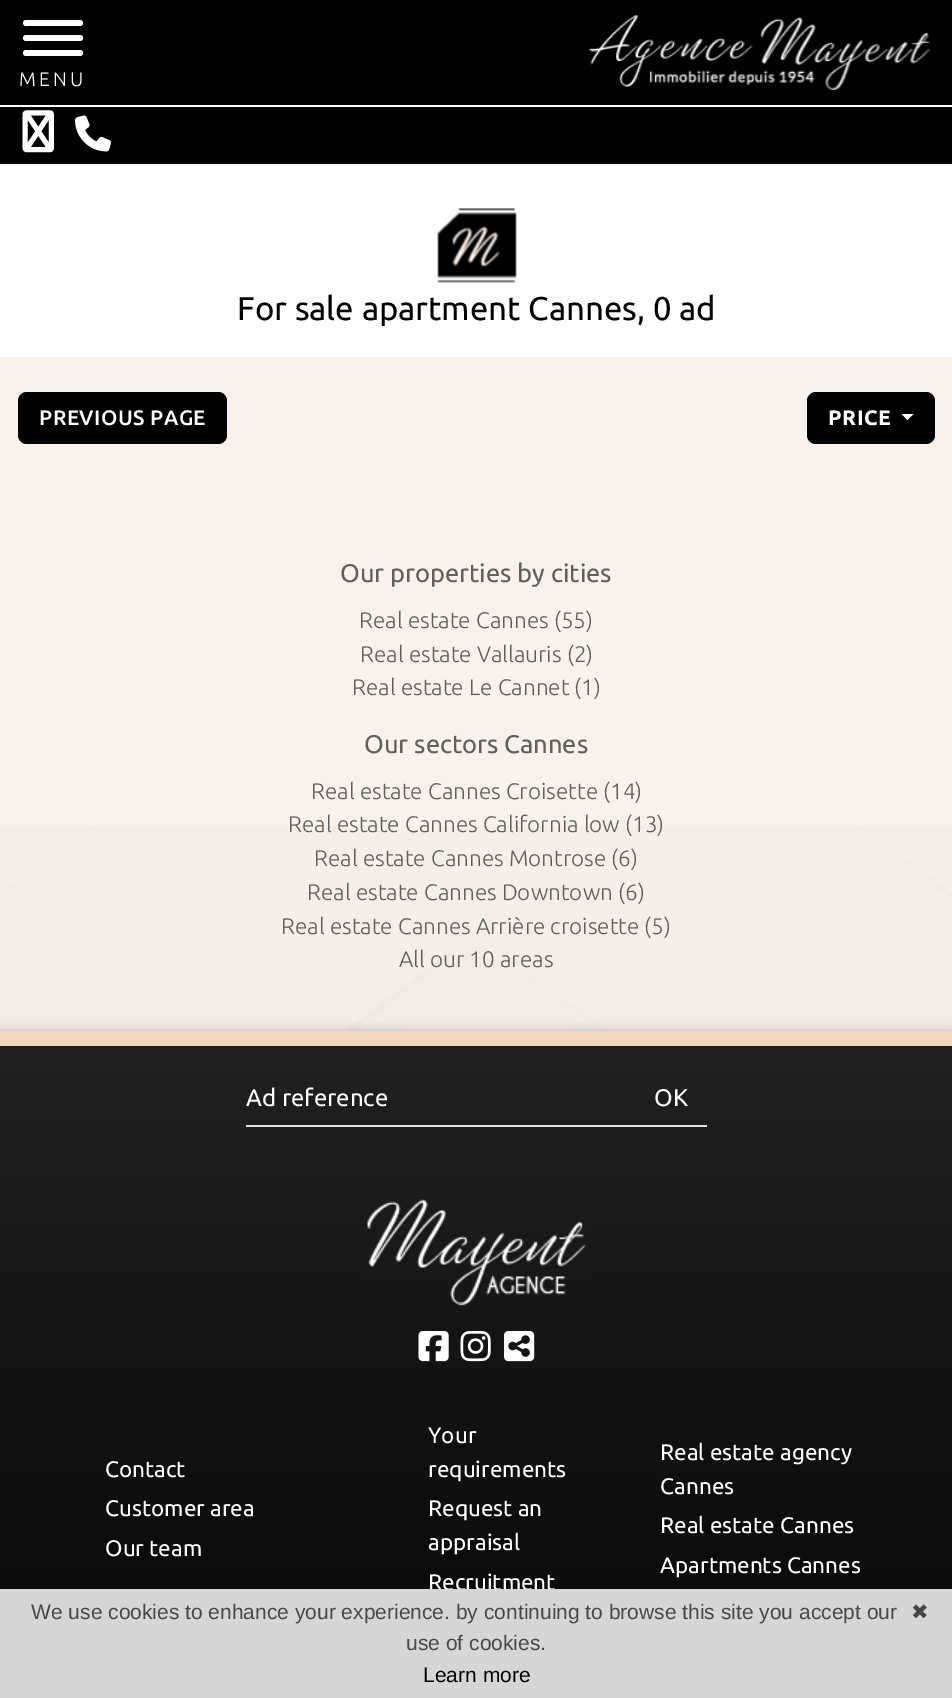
%!PS-Adobe-3.0
%%BoundingBox: 0 0 952 1698
%%LanguageLevel: 3
%%Pages: 1
%%EndComments
%%BeginProlog
/m { moveto } bind def
/l { lineto } bind def
/h { closepath } bind def
/f { fill } bind def
/q { gsave } bind def
/Q { grestore } bind def
/fn { [ exch dup neg 0 0 3 -1 roll 0 0 ] selectfont } def
/tx { moveto show } def
/bx { rectfill } def
/al { dup .setfillconstantalpha .setstrokeconstantalpha } def
/rr { 5 dict begin { /r /h /w /y /x } { exch def } forall
  x r add y moveto x w add y 2 copy h add r arct x w add y h add x 1 index r arct
  x y h add x y r arct x y 2 copy exch w add exch r arct closepath end } def
/sh { 12 dict begin { /a /b /q /h /w /y /x } { exch def } forall gsave /was 0 def
  9 -2 -9 { dup b mul 4 div /e exch def 1 sub .425 mul 2.718 exch exp 1 add a .99 .min exch div /now exch def
    1 1 now sub 1 was sub div sub al /was now def
    w h .min e 2 mul add 0 gt { x e sub y e sub w e 2 mul add h e 2 mul add
      q e add b .6 mul add w h .min 2 div e add .min 0 .max rr fill } if } for grestore end } def
/im { 5 dict begin { /h /w /y /x /name } { exch def } forall
  gsave x y translate w h scale
  w h 8 [w 0 0 h 0 0] name (r) file false 3 colorimage grestore end } def
%%EndProlog
%%BeginSetup
<< /PageSize [952 1698] /PageUsesTransparency true >> setpagedevice
%%EndSetup
%%Page: 1 1
0 .pushpdf14devicefilter
0 1698 translate 1 -1 scale
4 setmiterlimit
0.98 0.949 0.918 setrgbcolor
0 0 952 1698 bx
0 setgray
0 0 952 105 bx
1 setgray
0 105 952 2 bx
23 20 60 6 3 rr f
23 35 60 6 3 rr f
23 50 60 6 3 rr f
/Ubuntu-Light 19.5 fn
19 86 m 3 0 (MENU) ashow
(image0.raw) 589 15 341 75 im
0 setgray
0 107 952 57 bx
(image1.raw) 22 110 32 43 im
(image2.raw) 75 115 36 37 im
1 setgray
0 164 952 193 bx
(image3.raw) 437 208 80 75 im
/Ubuntu-Regular 33 fn
0 setgray
(For sale apartment Cannes, 0 ad) 237 320 tx
18 392 209 52 9 rr f
/Ubuntu-Medium 21 fn
1 setgray
39 425 m 0.5 0 (PREVIOUS PAGE) ashow
0 setgray
807 392 128 52 9 rr f
/Ubuntu-Bold 21 fn
1 setgray
828 425 m 0.5 0 (PRICE) ashow
901.5 414 m 913.5 414 l 907.5 420 l h f
(image4.raw) 0 826 952 205 im
/Ubuntu-Regular 25.5 fn
0.373 setgray
(Our properties by cities) 340 582 tx
/Ubuntu-Light 22.5 fn
(Real estate Cannes \(55\)) 359 628 tx
(Real estate Vallauris \(2\)) 360 662 tx
(Real estate Le Cannet \(1\)) 352 695 tx
/Ubuntu-Regular 25.5 fn
(Our sectors Cannes) 364 753 tx
/Ubuntu-Light 22.5 fn
(Real estate Cannes Croisette \(14\)) 311 799 tx
(Real estate Cannes California low \(13\)) 288 832 tx
(Real estate Cannes Montrose \(6\)) 314 866 tx
(Real estate Cannes Downtown \(6\)) 307 900 tx
(Real estate Cannes Arrière croisette \(5\)) 281 934 tx
(All our 10 areas) 399 967 tx
0 setgray
-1 1038 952 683 0 7.5 0.65 sh
q 0 1046 m 952 1046 l 952 1589 l 0 1589 l h clip newpath
<< /ShadingType 2 /ColorSpace /DeviceRGB /Coords [476 1046 476 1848] /Extend [true true] /Function << /FunctionType 2 /Domain [0 1] /C0 [0.129 0.129 0.129] /C1 [0 0 0] /N 1 >> >> shfill Q
0.937 0.843 0.745 setrgbcolor
0 1031 952 15 bx
0.871 0.886 0.902 setrgbcolor
246 1125 461 2 bx
/Ubuntu-Regular 24 fn
1 setgray
(Ad reference) 246 1106 tx
(OK) 654 1106 tx
(image5.raw) 367 1199 219 107 im
(image6.raw) 418 1331 31 31 im
(image7.raw) 460 1331 31 31 im
(image8.raw) 504 1331 31 31 im
/Ubuntu-Regular 22.5 fn
(Contact) 105 1477 tx
(Customer area) 105 1516 tx
(Our team) 105 1556 tx
(Your) 428 1443 tx
(requirements) 428 1477 tx
(Request an) 428 1516 tx
(appraisal) 428 1550 tx
(Recruitment) 428 1590 tx
(Real estate agency) 660 1460 tx
(Cannes) 660 1494 tx
(Real estate Cannes) 660 1533 tx
(Apartments Cannes) 660 1573 tx
0.839 setgray
0 1589 952 109 bx
/LiberationSans-Regular 21 fn
0.282 setgray
(We use cookies to enhance your experience. by continuing to browse this site you accept our) 31 1619 tx
(use of cookies.) 406 1650 tx
0 setgray
(Learn more) 423 1682 tx
/DejaVuSans-Regular 21 fn
0.282 setgray
(✖) 911 1619 tx
.poppdf14devicefilter showpage
%%EOF
